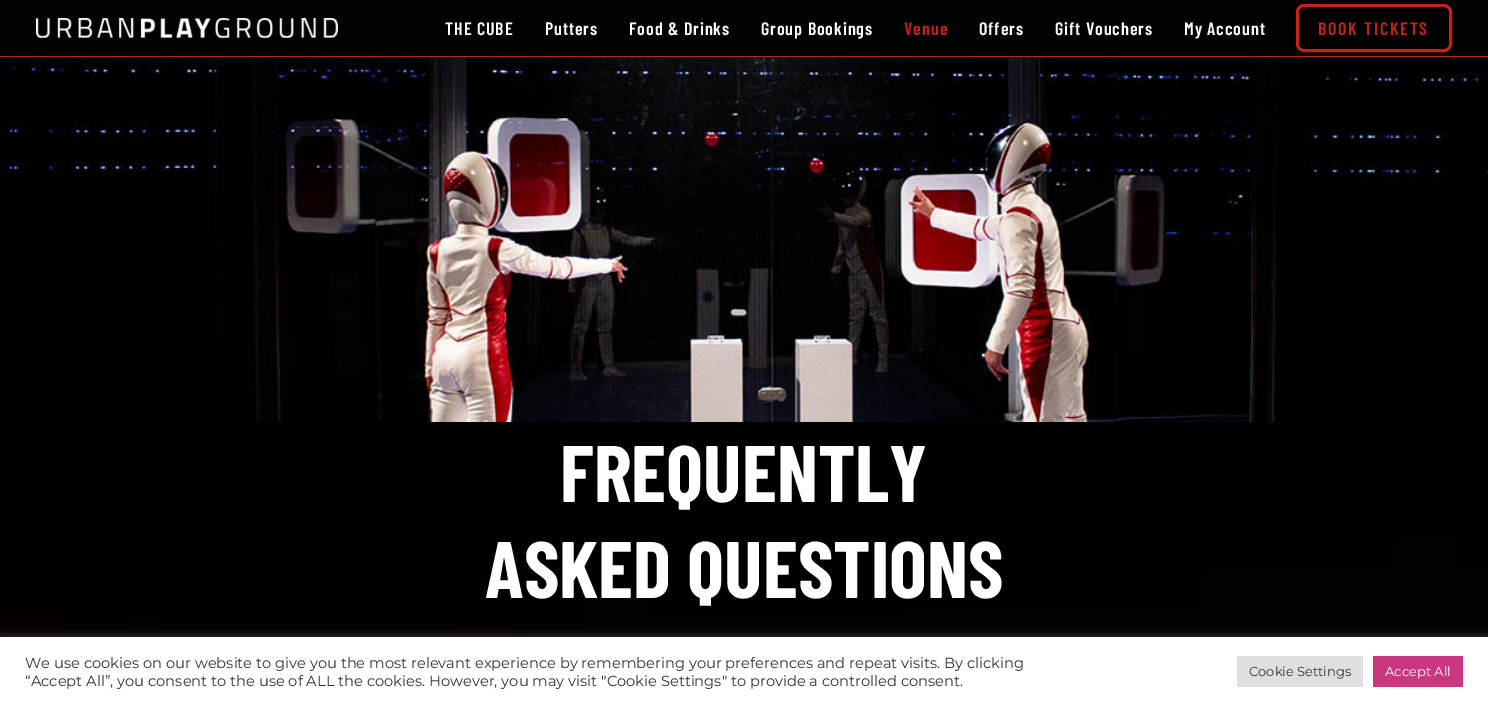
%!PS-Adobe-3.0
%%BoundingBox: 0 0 1488 706
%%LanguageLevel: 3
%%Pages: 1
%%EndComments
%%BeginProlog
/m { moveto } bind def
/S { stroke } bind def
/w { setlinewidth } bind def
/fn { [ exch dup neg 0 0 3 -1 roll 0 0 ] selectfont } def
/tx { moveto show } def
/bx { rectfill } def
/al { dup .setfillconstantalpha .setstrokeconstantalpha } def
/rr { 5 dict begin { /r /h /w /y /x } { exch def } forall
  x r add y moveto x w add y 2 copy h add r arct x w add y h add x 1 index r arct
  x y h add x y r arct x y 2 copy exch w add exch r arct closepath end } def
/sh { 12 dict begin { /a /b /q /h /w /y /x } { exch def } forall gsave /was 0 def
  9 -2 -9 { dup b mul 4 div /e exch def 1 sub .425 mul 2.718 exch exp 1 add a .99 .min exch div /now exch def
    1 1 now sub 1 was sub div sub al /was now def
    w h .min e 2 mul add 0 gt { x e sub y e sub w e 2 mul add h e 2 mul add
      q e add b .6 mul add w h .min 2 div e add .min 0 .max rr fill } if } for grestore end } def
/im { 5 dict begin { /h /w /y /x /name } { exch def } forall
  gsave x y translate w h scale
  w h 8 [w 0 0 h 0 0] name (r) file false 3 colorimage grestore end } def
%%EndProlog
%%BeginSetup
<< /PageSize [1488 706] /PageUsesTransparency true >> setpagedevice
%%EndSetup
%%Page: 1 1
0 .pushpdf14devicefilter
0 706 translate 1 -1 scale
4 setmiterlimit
1 setgray
0 0 1488 706 bx
(image0.raw) 0 422 1488 215 im
(image2.raw) 0 57 1488 365 im
0 setgray
10 14 1468 37 0 5 0.6 sh
0.004 0.008 0.008 setrgbcolor
0 0 1488 56 bx
0.769 0.133 0.094 setrgbcolor
0 56 1488 1 bx
(image1.raw) 36 18 302 20 im
/BarlowCondensed-SemiBold 18 fn
1 setgray
445 35 m 0.9 0 (THE CUBE) ashow
545 35 m 0.9 0 (Putters) ashow
629 35 m 0.9 0 (Food & Drinks) ashow
761 35 m 0.9 0 (Group Bookings) ashow
0.769 0.133 0.094 setrgbcolor
904 35 m 0.9 0 (Venue) ashow
1 setgray
979 35 m 0.9 0 (Offers) ashow
1055 35 m 0.9 0 (Gift Vouchers) ashow
1184 35 m 0.9 0 (My Account) ashow
0.769 0.133 0.094 setrgbcolor
3 w
1297.5 5.5 153 45 6.5 rr S
1318 35 m 1.75 0 (BOOK TICKETS) ashow
/BarlowCondensed-Bold 80 fn
1 setgray
(FREQUENTLY) 560 502 tx
(ASKED QUESTIONS) 485 598 tx
0.675 0.671 0.671 setrgbcolor
0 636 1488 69 0 5 0.3 sh
1 setgray
0 637 1488 69 bx
/Montserrat-Regular 14.67 fn
0.2 setgray
(We use cookies on our website to give you the most relevant experience by remembering your preferences and repeat visits. By clicking) 25 668 tx
(“Accept All”, you consent to the use of ALL the cookies. However, you may visit "Cookie Settings" to provide a controlled consent.) 25 686 tx
0.871 0.875 0.878 setrgbcolor
1237 656 126 31 bx
/Montserrat-Regular 13 fn
0.2 setgray
(Cookie Settings) 1249 676 tx
0.796 0.212 0.506 setrgbcolor
1373 656 90 31 bx
1 setgray
(Accept All) 1385 676 tx
.poppdf14devicefilter showpage
%%EOF
